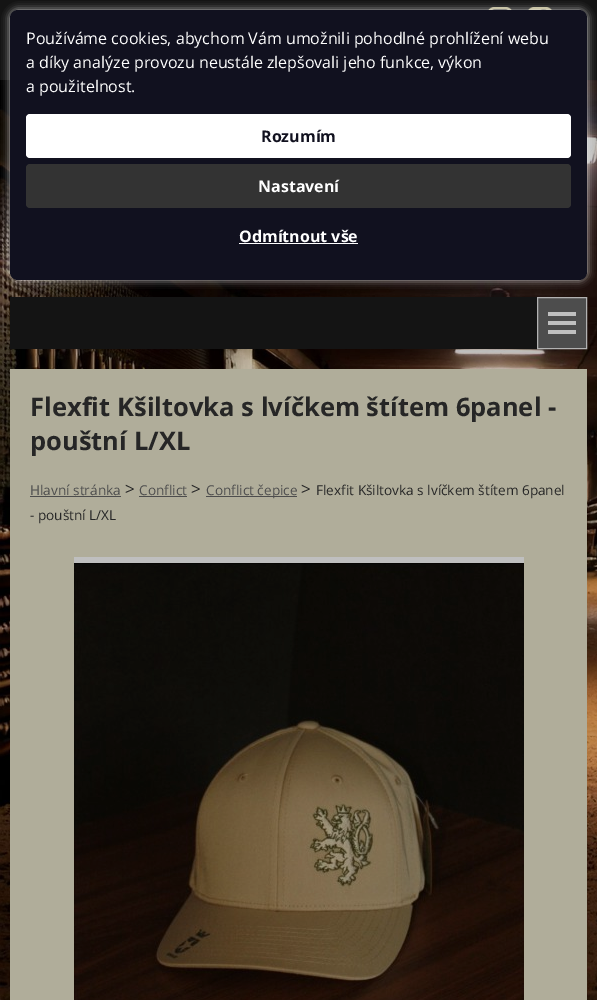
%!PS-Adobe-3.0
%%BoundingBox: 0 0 597 1000
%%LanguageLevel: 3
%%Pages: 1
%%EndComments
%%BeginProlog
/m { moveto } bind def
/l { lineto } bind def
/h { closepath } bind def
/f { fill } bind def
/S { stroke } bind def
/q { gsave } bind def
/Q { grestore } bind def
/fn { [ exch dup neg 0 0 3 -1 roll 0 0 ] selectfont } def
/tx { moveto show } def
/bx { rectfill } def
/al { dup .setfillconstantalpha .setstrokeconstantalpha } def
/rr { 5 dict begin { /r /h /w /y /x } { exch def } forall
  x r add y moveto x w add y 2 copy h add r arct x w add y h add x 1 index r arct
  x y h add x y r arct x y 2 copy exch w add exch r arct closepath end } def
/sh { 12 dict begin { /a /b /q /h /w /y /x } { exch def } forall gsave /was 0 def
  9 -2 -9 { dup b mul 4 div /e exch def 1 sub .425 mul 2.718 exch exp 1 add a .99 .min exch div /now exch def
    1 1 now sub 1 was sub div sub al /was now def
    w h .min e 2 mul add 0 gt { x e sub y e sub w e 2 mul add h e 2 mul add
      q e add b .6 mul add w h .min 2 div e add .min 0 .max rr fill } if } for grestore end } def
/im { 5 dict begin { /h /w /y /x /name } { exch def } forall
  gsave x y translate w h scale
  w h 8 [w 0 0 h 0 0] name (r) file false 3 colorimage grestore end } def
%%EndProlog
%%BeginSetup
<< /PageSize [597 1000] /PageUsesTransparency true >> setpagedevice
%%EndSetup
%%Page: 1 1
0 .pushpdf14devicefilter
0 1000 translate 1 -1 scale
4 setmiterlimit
1 setgray
0 0 597 1000 bx
(image0.raw) 0 80 597 920 im
0.078 setgray
0 0 597 80 bx
(image1.raw) 488 7 24 3 im
(image2.raw) 528 7 24 3 im
1 setgray
10 10 577 270 8 4 0.75 sh
0.067 0.067 0.122 setrgbcolor
10 10 577 270 8 rr f
/OpenSans-Regular 16 fn
1 setgray
(Používáme cookies, abychom Vám umožnili pohodlné prohlížení webu) 26 44 tx
(a díky analýze provozu neustále zlepšovali jeho funkce, výkon) 26 68 tx
(a použitelnost.) 26 92 tx
26 114 545 44 4 rr f
/OpenSans-Bold 16 fn
0.067 0.067 0.122 setrgbcolor
(Rozumím) 261 142 tx
0.2 setgray
26 164 545 44 4 rr f
1 setgray
(Nastavení) 258 192 tx
(Odmítnout vše) 239 242 tx
239 243 119 1 bx
0.078 setgray
10 297 527 52 bx
0.302 setgray
537.5 297.5 m 586.5 297.5 l 586.5 348.5 l 537.5 348.5 l h q f Q
0.698 setgray
S
0.749 setgray
548 312 28 4 bx
548 321 28 4 bx
548 330 28 4 bx
0.69 0.678 0.604 setrgbcolor
10 369 577 631 bx
/OpenSans-Bold 25.5 fn
0.149 setgray
(Flexfit Kšiltovka s lvíčkem štítem 6panel -) 30 416 tx
(pouštní L/XL) 30 450 tx
/OpenSans-Regular 13.6 fn
0.302 setgray
(Hlavní stránka) 30 495 tx
30 496 91 1 bx
/OpenSans-Regular 17 fn
0.149 setgray
(>) 125 495 tx
/OpenSans-Regular 13.6 fn
0.302 setgray
(Conflict) 139 495 tx
139 496 48 1 bx
/OpenSans-Regular 17 fn
0.149 setgray
(>) 191 495 tx
0.302 setgray
206 496 91 1 bx
/OpenSans-Regular 13.6 fn
(Conflict čepice) 206 495 tx
/OpenSans-Regular 17 fn
0.149 setgray
(>) 301 495 tx
/OpenSans-Regular 13.6 fn
(Flexfit Kšiltovka s lvíčkem štítem 6panel) 316 495 tx
(- pouštní L/XL) 30 520 tx
0.749 setgray
74 557 450 6 bx
(image3.raw) 74 563 450 437 im
.poppdf14devicefilter showpage
%%EOF
